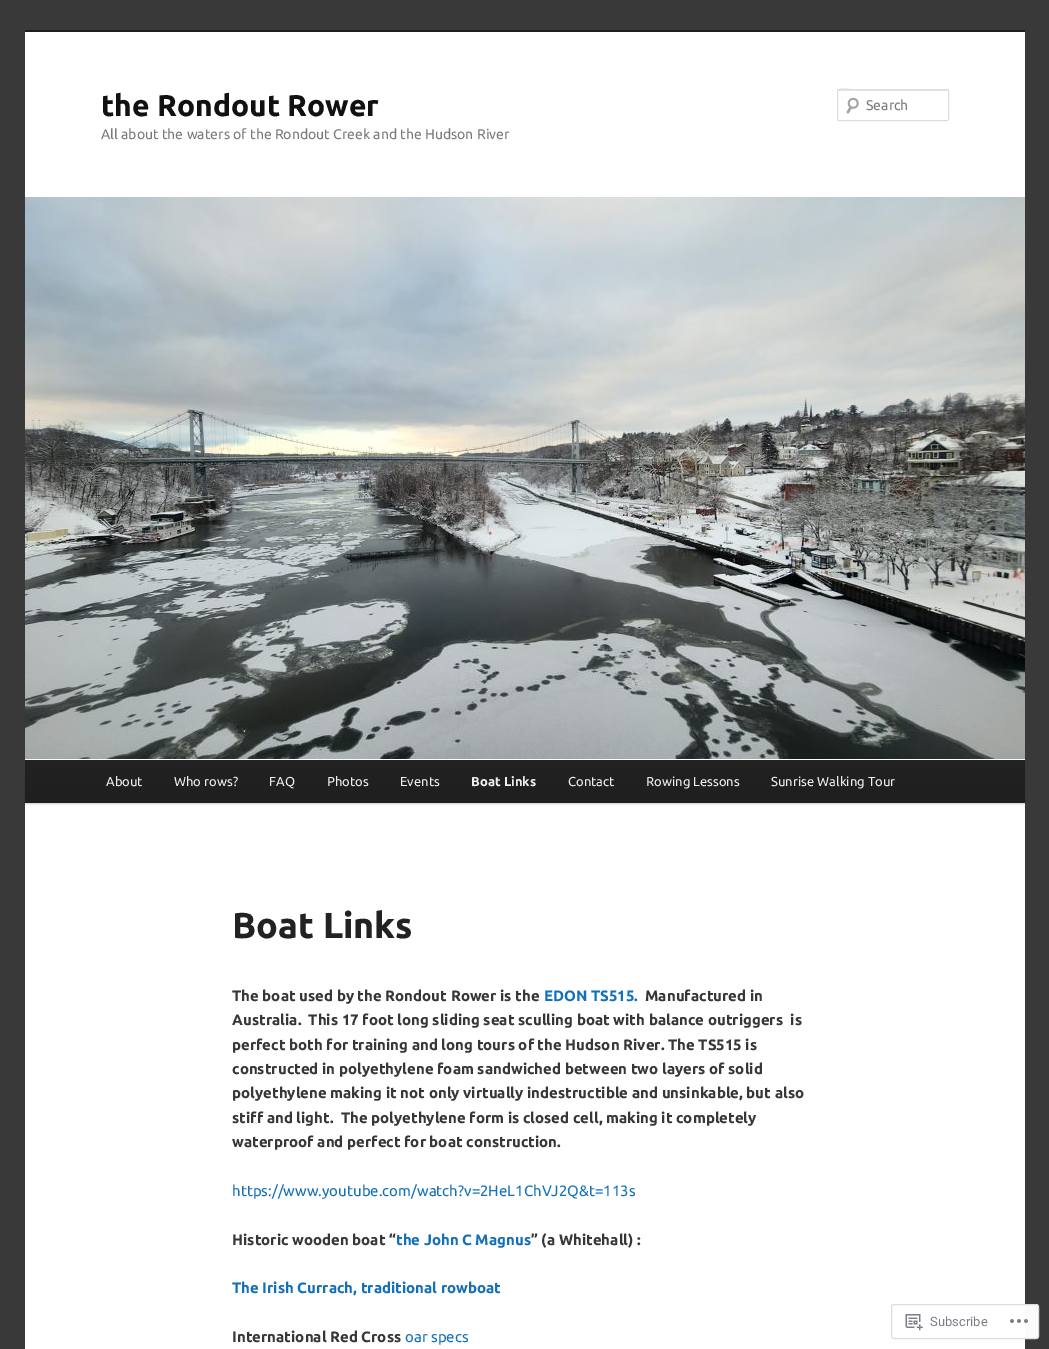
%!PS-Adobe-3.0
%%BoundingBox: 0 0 1049 1349
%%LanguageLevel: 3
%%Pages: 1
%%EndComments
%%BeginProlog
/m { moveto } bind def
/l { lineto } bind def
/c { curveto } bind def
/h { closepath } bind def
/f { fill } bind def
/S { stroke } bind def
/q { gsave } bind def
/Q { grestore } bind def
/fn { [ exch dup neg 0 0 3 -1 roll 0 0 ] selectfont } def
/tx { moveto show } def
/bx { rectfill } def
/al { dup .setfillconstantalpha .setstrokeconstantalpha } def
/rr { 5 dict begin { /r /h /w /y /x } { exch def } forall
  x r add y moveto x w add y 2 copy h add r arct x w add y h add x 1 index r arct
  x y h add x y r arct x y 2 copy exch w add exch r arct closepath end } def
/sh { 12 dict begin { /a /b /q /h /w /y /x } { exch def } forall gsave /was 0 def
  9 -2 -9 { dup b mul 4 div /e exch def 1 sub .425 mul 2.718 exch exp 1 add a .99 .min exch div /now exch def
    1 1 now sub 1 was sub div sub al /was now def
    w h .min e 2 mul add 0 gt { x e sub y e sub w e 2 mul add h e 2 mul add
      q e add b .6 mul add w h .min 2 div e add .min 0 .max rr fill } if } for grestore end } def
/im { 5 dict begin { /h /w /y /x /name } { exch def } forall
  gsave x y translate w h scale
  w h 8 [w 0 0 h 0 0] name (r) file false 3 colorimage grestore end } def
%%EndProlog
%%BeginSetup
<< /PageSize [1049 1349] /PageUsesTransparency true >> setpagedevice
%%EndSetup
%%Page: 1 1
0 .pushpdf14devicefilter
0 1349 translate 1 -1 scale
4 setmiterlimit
0.224 setgray
0 0 1049 1349 bx
1 setgray
25 32 1000 1317 bx
0.118 setgray
25 30 1000 2 bx
/Ubuntu-Bold 30 fn
0.067 setgray
(the Rondout Rower) 101 116 tx
/Ubuntu-Regular 14 fn
0.478 setgray
(All about the waters of the Rondout Creek and the Hudson River) 101 139 tx
(image0.raw) 846 97 13 17 im
0.902 setgray
839 91 m 948 91 l 948 92 l 947 90 l 857 90 l 853 90 838 85 838 92 c 838 91 838 91 839 91 c h f
0.867 setgray
837.5 89.5 111 31 1.5 rr S
0.478 setgray
(Search) 866 110 tx
0 setgray
25 761 1000 43 0 1 0.2 sh
(image1.raw) 25 197 1000 562 im
q 25 760 m 1025 760 l 1025 803 l 25 803 l h clip newpath
<< /ShadingType 2 /ColorSpace /DeviceRGB /Coords [525 760 525 803] /Extend [true true] /Function << /FunctionType 2 /Domain [0 1] /C0 [0.133 0.133 0.133] /C1 [0.122 0.122 0.122] /N 1 >> >> shfill Q
/Ubuntu-Regular 13 fn
0.933 setgray
(About) 106 786 tx
(Who rows?) 174 786 tx
(FAQ) 269 786 tx
(Photos) 327 786 tx
(Events) 400 786 tx
/Ubuntu-Bold 13 fn
(Boat Links) 471 786 tx
/Ubuntu-Regular 13 fn
(Contact) 568 786 tx
(Rowing Lessons) 646 786 tx
(Sunrise Walking Tour) 771 786 tx
/Ubuntu-Bold 36 fn
0.133 setgray
(Boat Links) 232 938 tx
/Ubuntu-Bold 15 fn
0.216 setgray
(The boat used by the Rondout Rower is the) 232 1001 tx
0.078 0.439 0.718 setrgbcolor
(EDON TS515.) 544 1001 tx
0.216 setgray
(Manufactured in) 645 1001 tx
(Australia.  This 17 foot long sliding seat sculling boat with balance outriggers  is) 232 1025 tx
(perfect both for training and long tours of the Hudson River. The TS515 is) 232 1050 tx
(constructed in polyethylene foam sandwiched between two layers of solid) 232 1074 tx
(polyethylene making it not only virtually indestructible and unsinkable, but also) 232 1098 tx
(stiff and light.  The polyethylene form is closed cell, making it completely) 232 1123 tx
(waterproof and perfect for boat construction.) 232 1147 tx
/Ubuntu-Regular 15 fn
0.078 0.439 0.718 setrgbcolor
(https://www.youtube.com/watch?v=2HeL1ChVJ2Q&t=113s) 232 1196 tx
/Ubuntu-Bold 15 fn
0.216 setgray
(Historic wooden boat “) 232 1245 tx
0.078 0.439 0.718 setrgbcolor
(the John C Magnus) 396 1245 tx
0.216 setgray
(” \(a Whitehall\) :) 531 1245 tx
0.078 0.439 0.718 setrgbcolor
(The Irish Currach, traditional rowboat) 232 1293 tx
0.216 setgray
(International Red Cross) 232 1342 tx
/Ubuntu-Regular 15 fn
0.078 0.439 0.718 setrgbcolor
(oar specs) 405 1342 tx
0.98 al
1 setgray
891 1304 148 35 3 rr f
0.863 0.863 0.871 setrgbcolor
891.5 1304.5 147 34 2.5 rr S
1 al
(image2.raw) 905 1314 18 17 im
/Roboto-Regular 13 fn
0.482 0.498 0.522 setrgbcolor
(Subscribe) 930 1326 tx
(image3.raw) 1010 1319 18 4 im
.poppdf14devicefilter showpage
%%EOF
